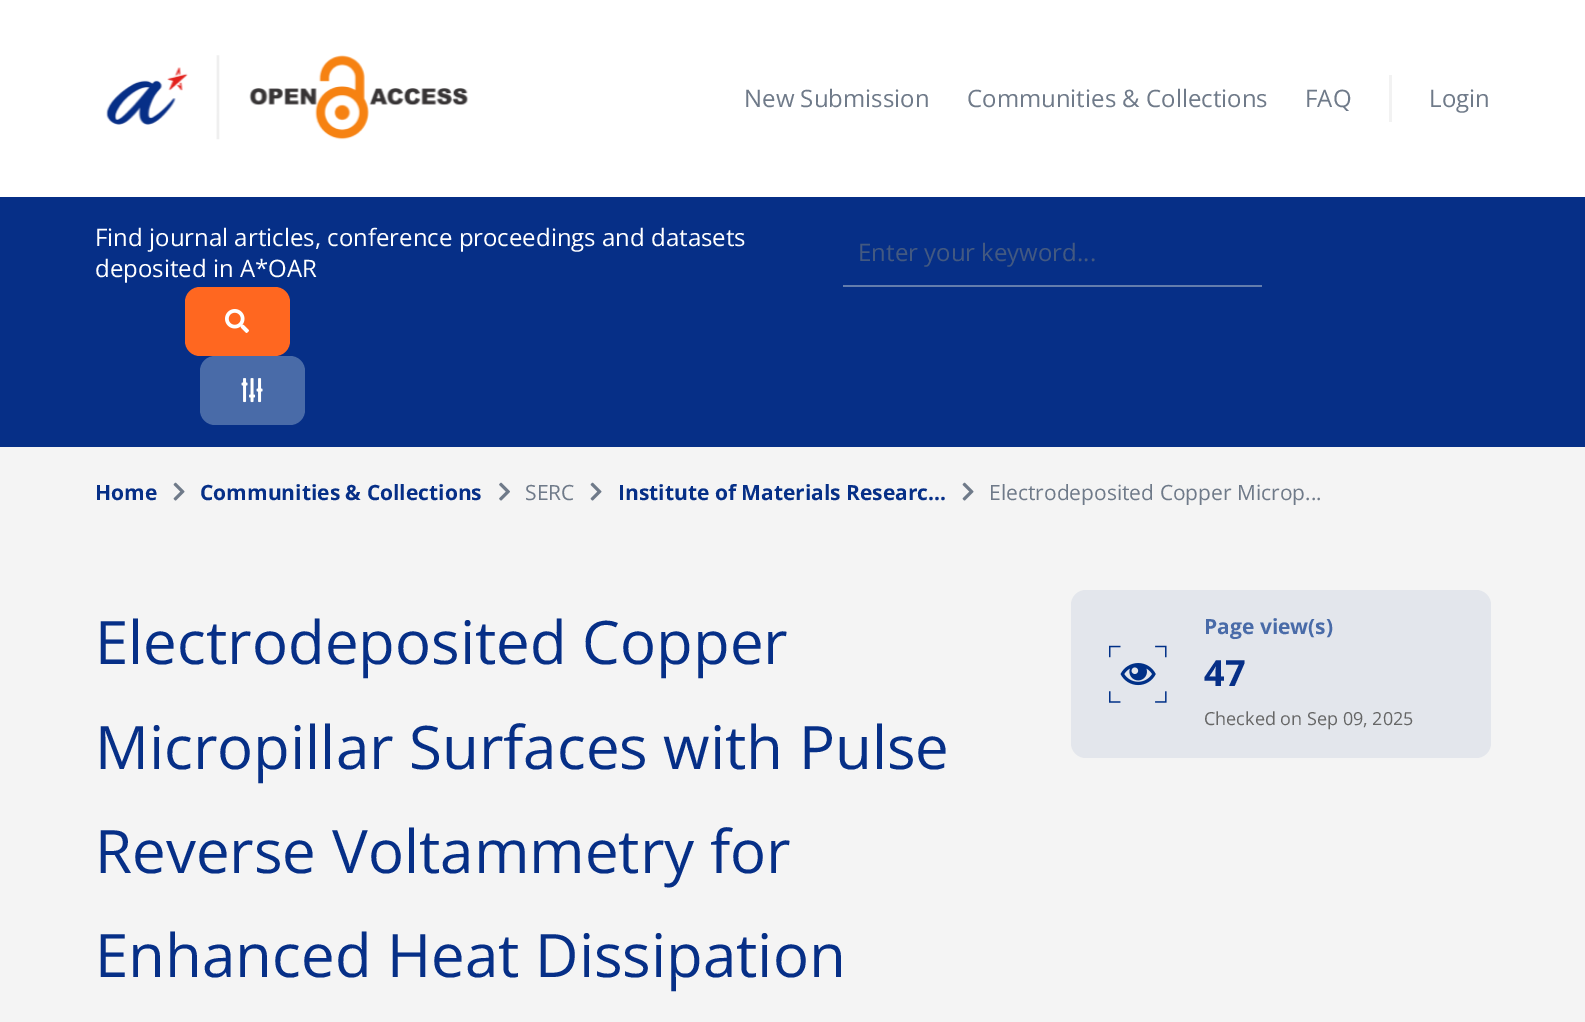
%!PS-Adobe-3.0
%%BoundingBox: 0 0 1585 1022
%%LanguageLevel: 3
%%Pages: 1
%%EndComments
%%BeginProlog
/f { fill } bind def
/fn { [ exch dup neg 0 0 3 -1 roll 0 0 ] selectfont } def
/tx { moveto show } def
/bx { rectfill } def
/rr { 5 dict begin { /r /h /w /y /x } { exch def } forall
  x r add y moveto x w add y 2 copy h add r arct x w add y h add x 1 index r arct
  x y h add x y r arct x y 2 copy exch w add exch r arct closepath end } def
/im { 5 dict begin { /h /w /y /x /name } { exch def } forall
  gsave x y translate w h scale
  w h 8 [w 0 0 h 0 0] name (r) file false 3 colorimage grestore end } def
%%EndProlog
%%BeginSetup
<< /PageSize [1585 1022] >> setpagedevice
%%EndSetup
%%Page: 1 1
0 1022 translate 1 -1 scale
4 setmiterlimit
0.957 setgray
0 0 1585 1022 bx
1 setgray
0 0 1585 197 bx
(image0.raw) 106 55 363 85 im
/OpenSans-Regular 24 fn
0.435 0.478 0.537 setrgbcolor
(New Submission) 744 107 tx
(Communities & Collections) 967 107 tx
(FAQ) 1305 107 tx
0.949 setgray
1389 75 3 47 bx
0.435 0.478 0.537 setrgbcolor
(Login) 1429 107 tx
0.024 0.184 0.529 setrgbcolor
0 197 1585 250 bx
1 setgray
(Find journal articles, conference proceedings and datasets) 95 246 tx
(deposited in A*OAR) 95 277 tx
0.388 0.49 0.678 setrgbcolor
843 285 419 2 bx
0.263 0.349 0.506 setrgbcolor
(Enter your keyword...) 858 261 tx
1 0.404 0.125 setrgbcolor
185 287 105 69 15 rr f
(image1.raw) 225 309 24 24 im
0.286 0.42 0.659 setrgbcolor
200 356 105 69 15 rr f
(image2.raw) 241 378 22 25 im
/OpenSans-Bold 21 fn
0.024 0.184 0.529 setrgbcolor
(Home) 95 500 tx
(image3.raw) 173 482 12 19 im
(Communities & Collections) 200 500 tx
(image4.raw) 499 482 11 19 im
/OpenSans-Regular 21 fn
0.435 0.478 0.537 setrgbcolor
(SERC) 525 500 tx
(image3.raw) 590 482 12 19 im
/OpenSans-Bold 21 fn
0.024 0.184 0.529 setrgbcolor
(Institute of Materials Researc...) 618 500 tx
(image3.raw) 962 482 12 19 im
/OpenSans-Regular 21 fn
0.435 0.478 0.537 setrgbcolor
(Electrodeposited Copper Microp...) 989 500 tx
/OpenSans-Regular 60 fn
0.024 0.184 0.529 setrgbcolor
(Electrodeposited Copper) 95 664 tx
(Micropillar Surfaces with Pulse) 95 769 tx
(Reverse Voltammetry for) 95 873 tx
(Enhanced Heat Dissipation) 95 977 tx
0.89 0.902 0.925 setrgbcolor
1071 590 420 168 15 rr f
(image5.raw) 1109 645 58 58 im
/OpenSans-Bold 21 fn
0.286 0.42 0.659 setrgbcolor
(Page view\(s\)) 1204 634 tx
/OpenSans-Bold 36 fn
0.024 0.184 0.529 setrgbcolor
(47) 1204 686 tx
/OpenSans-Regular 18 fn
0.4 setgray
(Checked on Sep 09, 2025) 1204 725 tx
showpage
%%EOF
